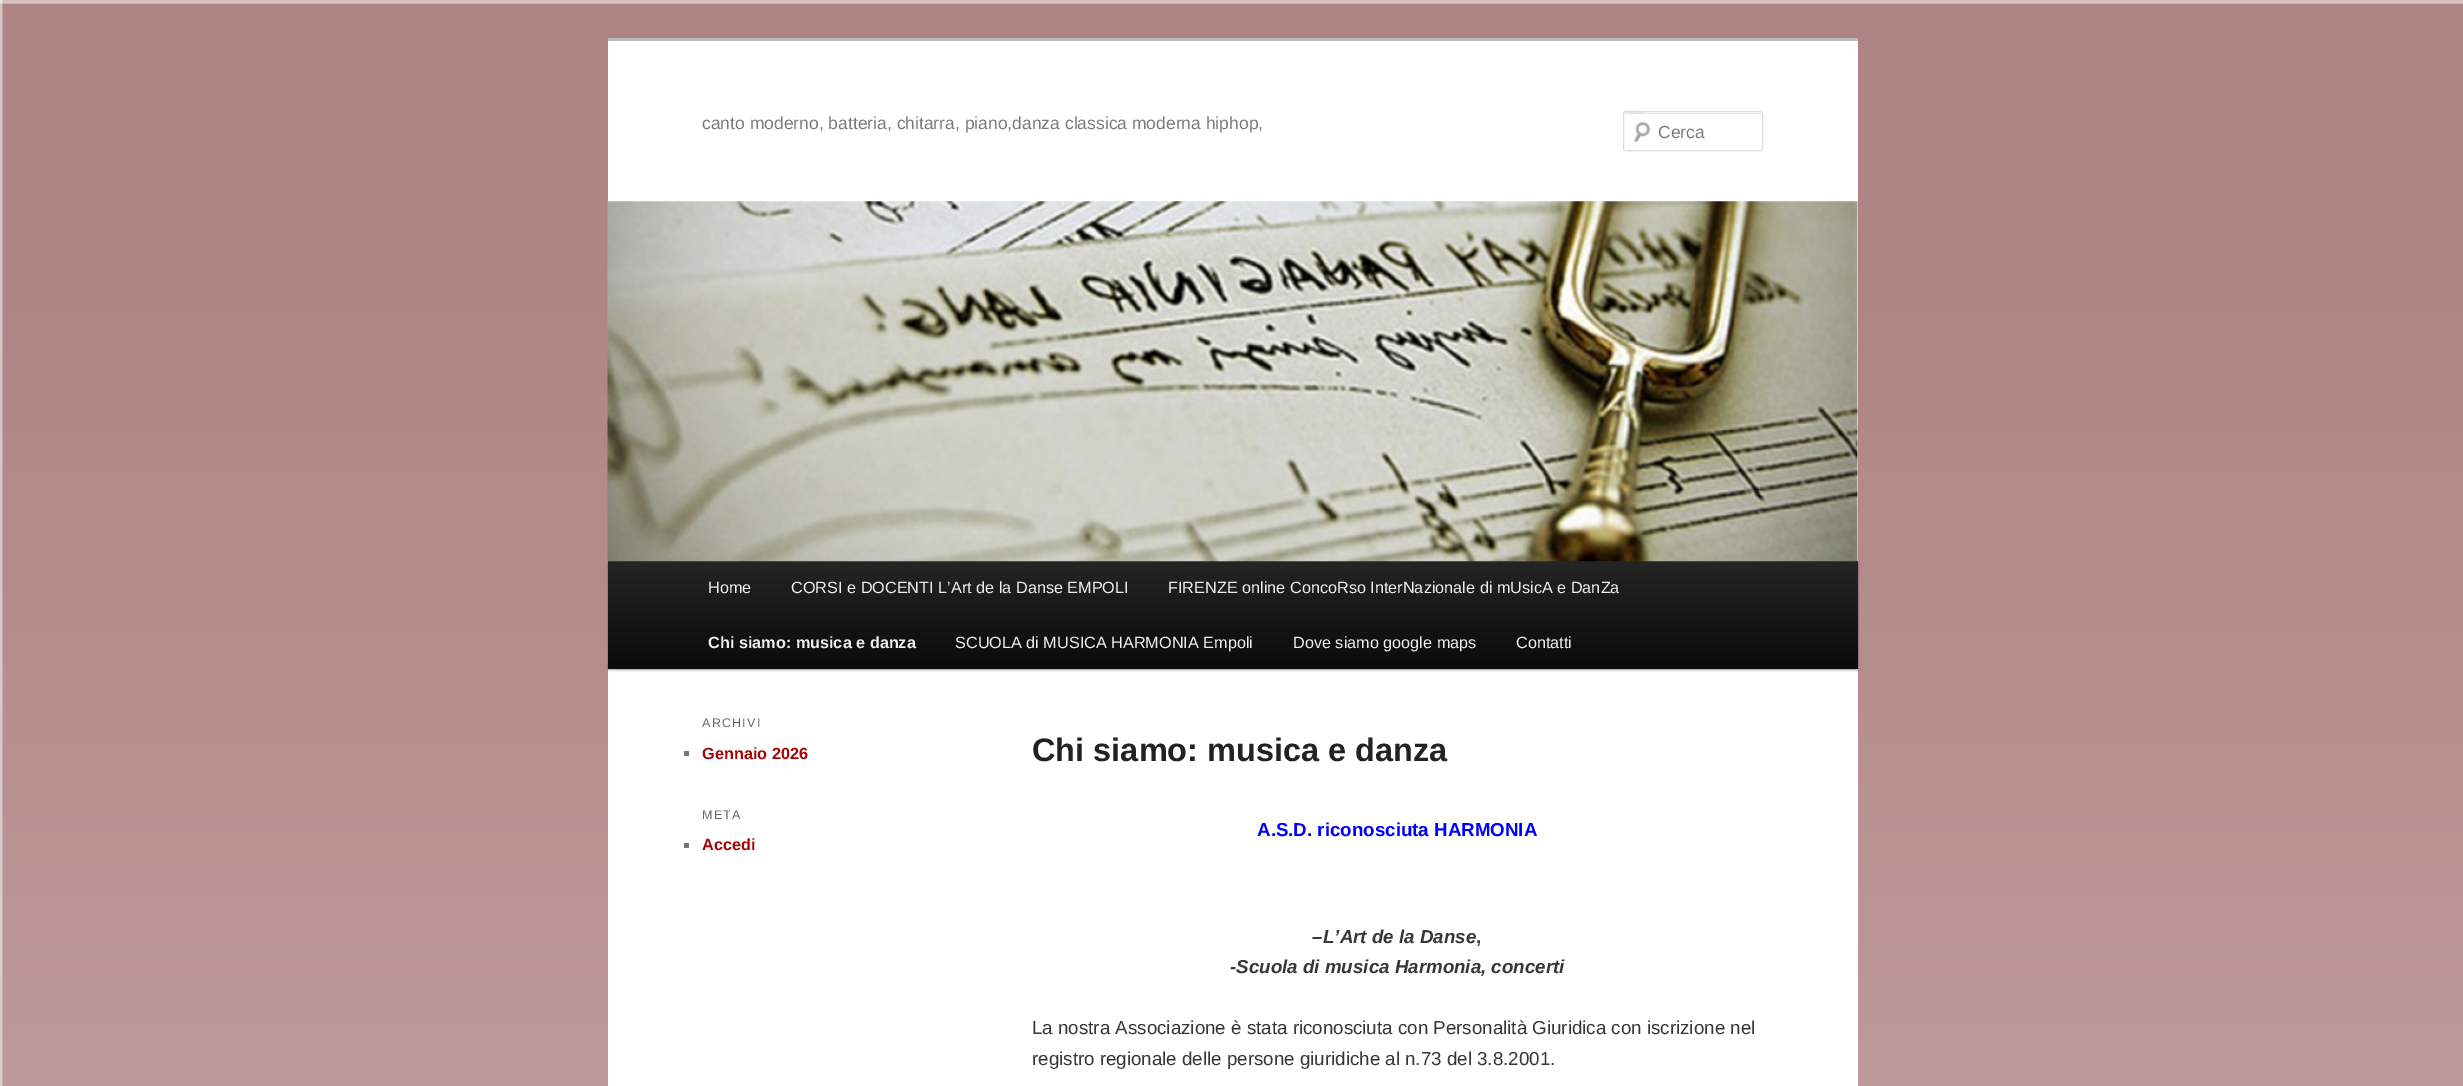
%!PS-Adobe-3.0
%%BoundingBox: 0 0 2463 1086
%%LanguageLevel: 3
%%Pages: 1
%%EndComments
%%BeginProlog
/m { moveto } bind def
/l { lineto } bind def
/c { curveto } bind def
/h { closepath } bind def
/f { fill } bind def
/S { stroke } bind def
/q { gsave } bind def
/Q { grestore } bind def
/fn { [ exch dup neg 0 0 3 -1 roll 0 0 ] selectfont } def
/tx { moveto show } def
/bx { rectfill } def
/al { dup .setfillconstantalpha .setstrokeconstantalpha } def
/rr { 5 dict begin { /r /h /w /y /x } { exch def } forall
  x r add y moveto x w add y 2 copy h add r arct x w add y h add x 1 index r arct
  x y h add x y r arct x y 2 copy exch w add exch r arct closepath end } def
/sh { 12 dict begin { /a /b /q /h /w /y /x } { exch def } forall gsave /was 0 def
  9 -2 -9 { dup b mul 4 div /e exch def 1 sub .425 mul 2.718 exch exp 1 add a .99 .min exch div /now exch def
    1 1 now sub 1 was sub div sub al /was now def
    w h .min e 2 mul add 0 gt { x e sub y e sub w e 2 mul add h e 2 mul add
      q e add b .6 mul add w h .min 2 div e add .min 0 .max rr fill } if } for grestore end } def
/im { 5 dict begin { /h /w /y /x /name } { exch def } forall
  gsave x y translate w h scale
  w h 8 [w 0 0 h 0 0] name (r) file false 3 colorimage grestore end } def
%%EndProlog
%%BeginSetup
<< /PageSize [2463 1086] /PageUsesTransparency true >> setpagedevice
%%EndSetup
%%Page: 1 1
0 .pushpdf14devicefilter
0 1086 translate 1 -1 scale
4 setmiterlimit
1 setgray
0 0 2463 1086 bx
(image0.raw) 0 0 2463 1086 im
608 41 1250 1045 bx
0.733 setgray
608 38 1250 3 bx
/LiberationSans-Regular 17.5 fn
0.478 setgray
(canto moderno, batteria, chitarra, piano,danza classica moderna hiphop,) 702 129 tx
(image1.raw) 1633 121 18 22 im
0.902 setgray
1625 114 m 1760 114 l 1761 114 1761 114 1761 115 c 1761 113 l 1648 113 l 1647 113 1624 107 1624 115 c 1624 114 1624 114 1625 114 c h f
0.867 setgray
1623.5 111.5 139 39 2 rr S
0.478 setgray
(Cerca) 1658 138 tx
0 setgray
608 563 1250 107 0 1 0.4 sh
q 608 561 m 1858 561 l 1858 669 l 608 669 l h clip newpath
<< /ShadingType 2 /ColorSpace /DeviceRGB /Coords [1233 561 1233 669] /Extend [true true] /Function << /FunctionType 2 /Domain [0 1] /C0 [0.145 0.145 0.145] /C1 [0.039 0.039 0.039] /N 1 >> >> shfill Q
(image2.raw) 607 201 1251 361 im
/LiberationSans-Regular 16.25 fn
0.933 setgray
(Home) 708 593 tx
(CORSI e DOCENTI L’Art de la Danse EMPOLI) 791 593 tx
(FIRENZE online ConcoRso InterNazionale di mUsicA e DanZa) 1168 593 tx
/LiberationSans-Bold 16.25 fn
(Chi siamo: musica e danza) 708 648 tx
/LiberationSans-Regular 16.25 fn
(SCUOLA di MUSICA HARMONIA Empoli) 955 648 tx
(Dove siamo google maps) 1293 648 tx
(Contatti) 1516 648 tx
/LiberationSans-Regular 12.5 fn
0.4 setgray
702 727 m 1.25 0 (ARCHIVI) ashow
0.467 setgray
684 751 5 5 bx
/LiberationSans-Bold 16.25 fn
0.655 0.012 0.012 setrgbcolor
(Gennaio 2026) 702 759 tx
/LiberationSans-Regular 12.5 fn
0.4 setgray
702 819 m 1.25 0 (META) ashow
0.467 setgray
684 843 5 5 bx
/LiberationSans-Bold 16.25 fn
0.655 0.012 0.012 setrgbcolor
(Accedi) 702 850 tx
/LiberationSans-Bold 32.5 fn
0.133 setgray
(Chi siamo: musica e danza) 1032 761 tx
/LiberationSans-Bold 18.75 fn
0 0 1 setrgbcolor
(A.S.D. riconosciuta HARMONIA) 1257 836 tx
0.216 setgray
(–) 1312 943 tx
/LiberationSans-BoldItalic 18.75 fn
(L’Art de la Danse) 1323 943 tx
/LiberationSans-Bold 18.75 fn
(,) 1476 943 tx
/LiberationSans-BoldItalic 18.75 fn
(-Scuola di musica Harmonia, concerti) 1230 973 tx
/LiberationSans-Regular 18.75 fn
(La nostra Associazione è stata riconosciuta con Personalità Giuridica con iscrizione nel) 1032 1034 tx
(registro regionale delle persone giuridiche al n.73 del 3.8.2001.) 1032 1065 tx
.poppdf14devicefilter showpage
%%EOF
